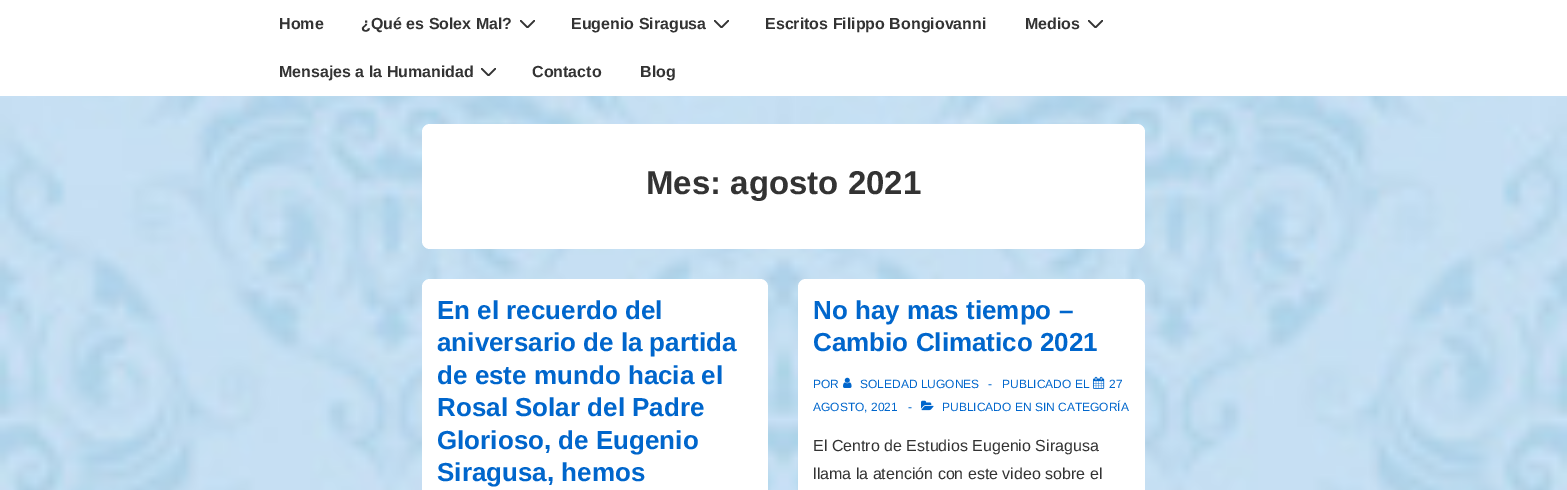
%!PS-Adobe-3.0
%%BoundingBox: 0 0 1567 490
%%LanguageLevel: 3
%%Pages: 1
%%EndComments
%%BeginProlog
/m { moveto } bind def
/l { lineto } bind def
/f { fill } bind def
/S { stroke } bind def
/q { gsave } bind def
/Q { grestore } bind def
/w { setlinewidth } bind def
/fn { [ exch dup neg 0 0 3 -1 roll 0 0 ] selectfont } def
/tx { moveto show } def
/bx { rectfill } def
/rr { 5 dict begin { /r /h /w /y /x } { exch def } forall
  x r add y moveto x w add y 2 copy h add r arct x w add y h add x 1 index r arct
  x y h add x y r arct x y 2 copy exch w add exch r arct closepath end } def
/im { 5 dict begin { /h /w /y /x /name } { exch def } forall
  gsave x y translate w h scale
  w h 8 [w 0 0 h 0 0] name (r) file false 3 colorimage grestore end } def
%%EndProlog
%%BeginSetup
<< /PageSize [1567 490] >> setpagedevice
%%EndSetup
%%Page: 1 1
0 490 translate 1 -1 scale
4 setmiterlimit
1 setgray
0 0 1567 490 bx
(image0.raw) 0 96 1567 394 im
/LiberationSans-Bold 16 fn
0.2 setgray
(Home) 279 29 tx
(¿Qué es Solex Mal?) 361 29 tx
q
520 20 15 8 rectclip
1.6 w
1 setlinecap
520.5 20.5 m 527.5 27.5 l 534.5 20.5 l S
Q
(Eugenio Siragusa) 571 29 tx
q
714 20 15 8 rectclip
1.6 w
1 setlinecap
714.5 20.5 m 721.5 27.5 l 728.5 20.5 l S
Q
(Escritos Filippo Bongiovanni) 765 29 tx
(Medios) 1025 29 tx
q
1088 20 15 8 rectclip
1.6 w
1 setlinecap
1088.5 20.5 m 1095.5 27.5 l 1102.5 20.5 l S
Q
(Mensajes a la Humanidad) 279 77 tx
q
481 68 15 8 rectclip
1.6 w
1 setlinecap
481.5 68.5 m 488.5 75.5 l 495.5 68.5 l S
Q
(Contacto) 532 77 tx
(Blog) 640 77 tx
1 setgray
422 124 723 125 8 rr f
/LiberationSans-Bold 33 fn
0.2 setgray
(Mes: agosto 2021) 646 194 tx
1 setgray
422 279 346 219 8 rr f
/LiberationSans-Bold 26 fn
0 0.4 0.8 setrgbcolor
(En el recuerdo del) 437 319 tx
(aniversario de la partida) 437 351 tx
(de este mundo hacia el) 437 384 tx
(Rosal Solar del Padre) 437 416 tx
(Glorioso, de Eugenio) 437 449 tx
(Siragusa, hemos) 437 481 tx
1 setgray
798 279 347 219 8 rr f
0 0.4 0.8 setrgbcolor
(No hay mas tiempo –) 813 319 tx
(Cambio Climatico 2021) 813 351 tx
/LiberationSans-Regular 12 fn
(POR) 813 388 tx
(image1.raw) 843 377 9 11 im
(SOLEDAD LUGONES) 860 388 tx
(-) 988 388 tx
(PUBLICADO EL) 1002 388 tx
(image2.raw) 1093 376 12 13 im
(27) 1109 388 tx
(AGOSTO, 2021) 813 411 tx
(-) 908 411 tx
(image3.raw) 921 400 13 11 im
(PUBLICADO EN SIN CATEGORÍA) 942 411 tx
/LiberationSans-Regular 16 fn
0.2 setgray
(El Centro de Estudios Eugenio Siragusa) 813 451 tx
(llama la atención con este video sobre el) 813 479 tx
showpage
%%EOF
